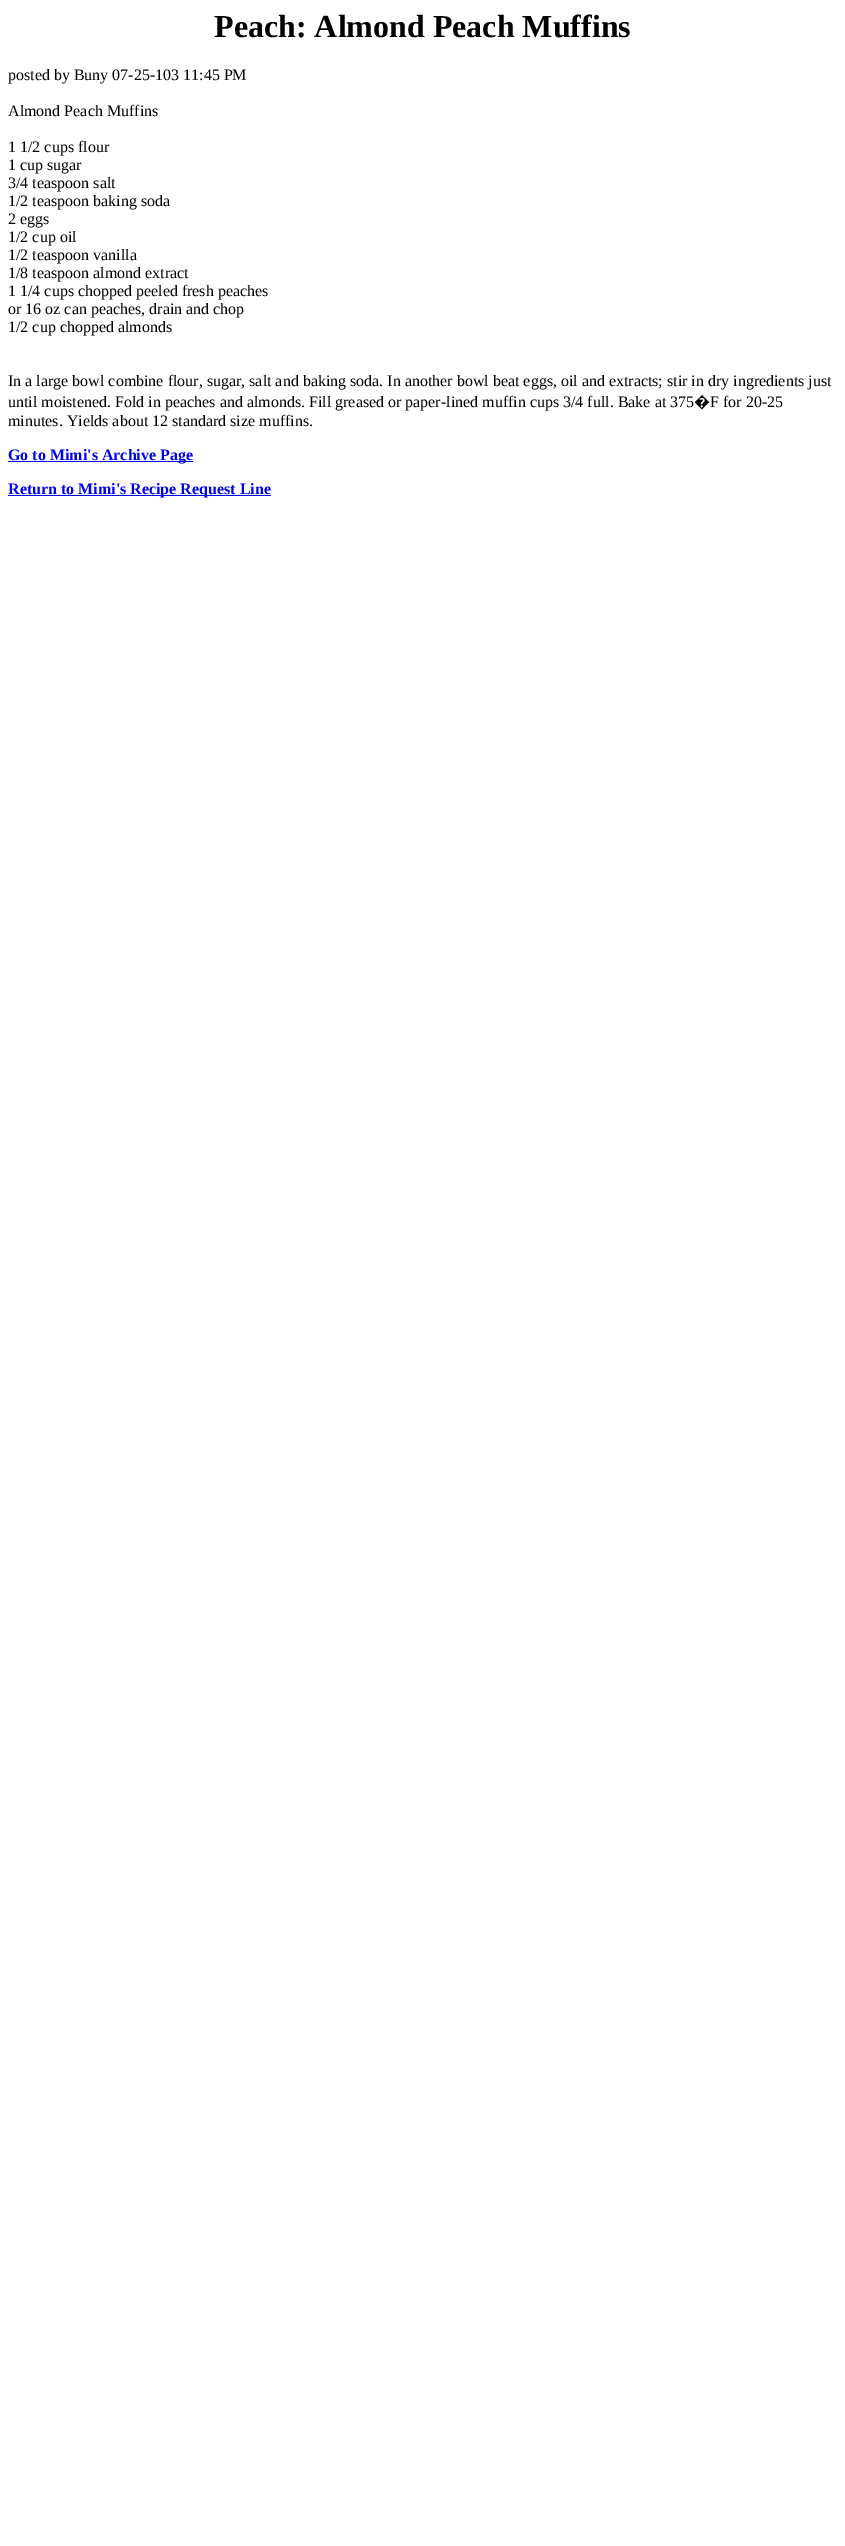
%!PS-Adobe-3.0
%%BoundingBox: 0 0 845 2546
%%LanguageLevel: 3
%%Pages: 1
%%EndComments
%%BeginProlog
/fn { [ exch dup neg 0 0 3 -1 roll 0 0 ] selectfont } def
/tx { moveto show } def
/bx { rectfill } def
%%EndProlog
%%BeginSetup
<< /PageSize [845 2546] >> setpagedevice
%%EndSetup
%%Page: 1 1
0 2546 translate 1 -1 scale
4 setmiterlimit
1 setgray
0 0 845 2546 bx
/LiberationSerif-Bold 32 fn
0 setgray
(Peach: Almond Peach Muffins) 214 37 tx
/LiberationSerif-Regular 16 fn
(posted by Buny 07-25-103 11:45 PM) 8 80 tx
(Almond Peach Muffins) 8 116 tx
(1 1/2 cups flour) 8 152 tx
(1 cup sugar) 8 170 tx
(3/4 teaspoon salt) 8 188 tx
(1/2 teaspoon baking soda) 8 206 tx
(2 eggs) 8 224 tx
(1/2 cup oil) 8 242 tx
(1/2 teaspoon vanilla) 8 260 tx
(1/8 teaspoon almond extract) 8 278 tx
(1 1/4 cups chopped peeled fresh peaches) 8 296 tx
(or 16 oz can peaches, drain and chop) 8 314 tx
(1/2 cup chopped almonds) 8 332 tx
(In a large bowl combine flour, sugar, salt and baking soda. In another bowl beat eggs, oil and extracts; stir in dry ingredients just) 8 386 tx
(until moistened. Fold in peaches and almonds. Fill greased or paper-lined muffin cups 3/4 full. Bake at 375) 8 407 tx
/NotoSans-Regular 16 fn
(�) 694 407 tx
/LiberationSerif-Regular 16 fn
(F for 20-25) 710 407 tx
(minutes. Yields about 12 standard size muffins.) 8 426 tx
0 0 0.933 setrgbcolor
8 461 185 1 bx
/LiberationSerif-Bold 16 fn
(Go to Mimi's Archive Page) 8 460 tx
8 495 263 1 bx
(Return to Mimi's Recipe Request Line) 8 494 tx
showpage
%%EOF
